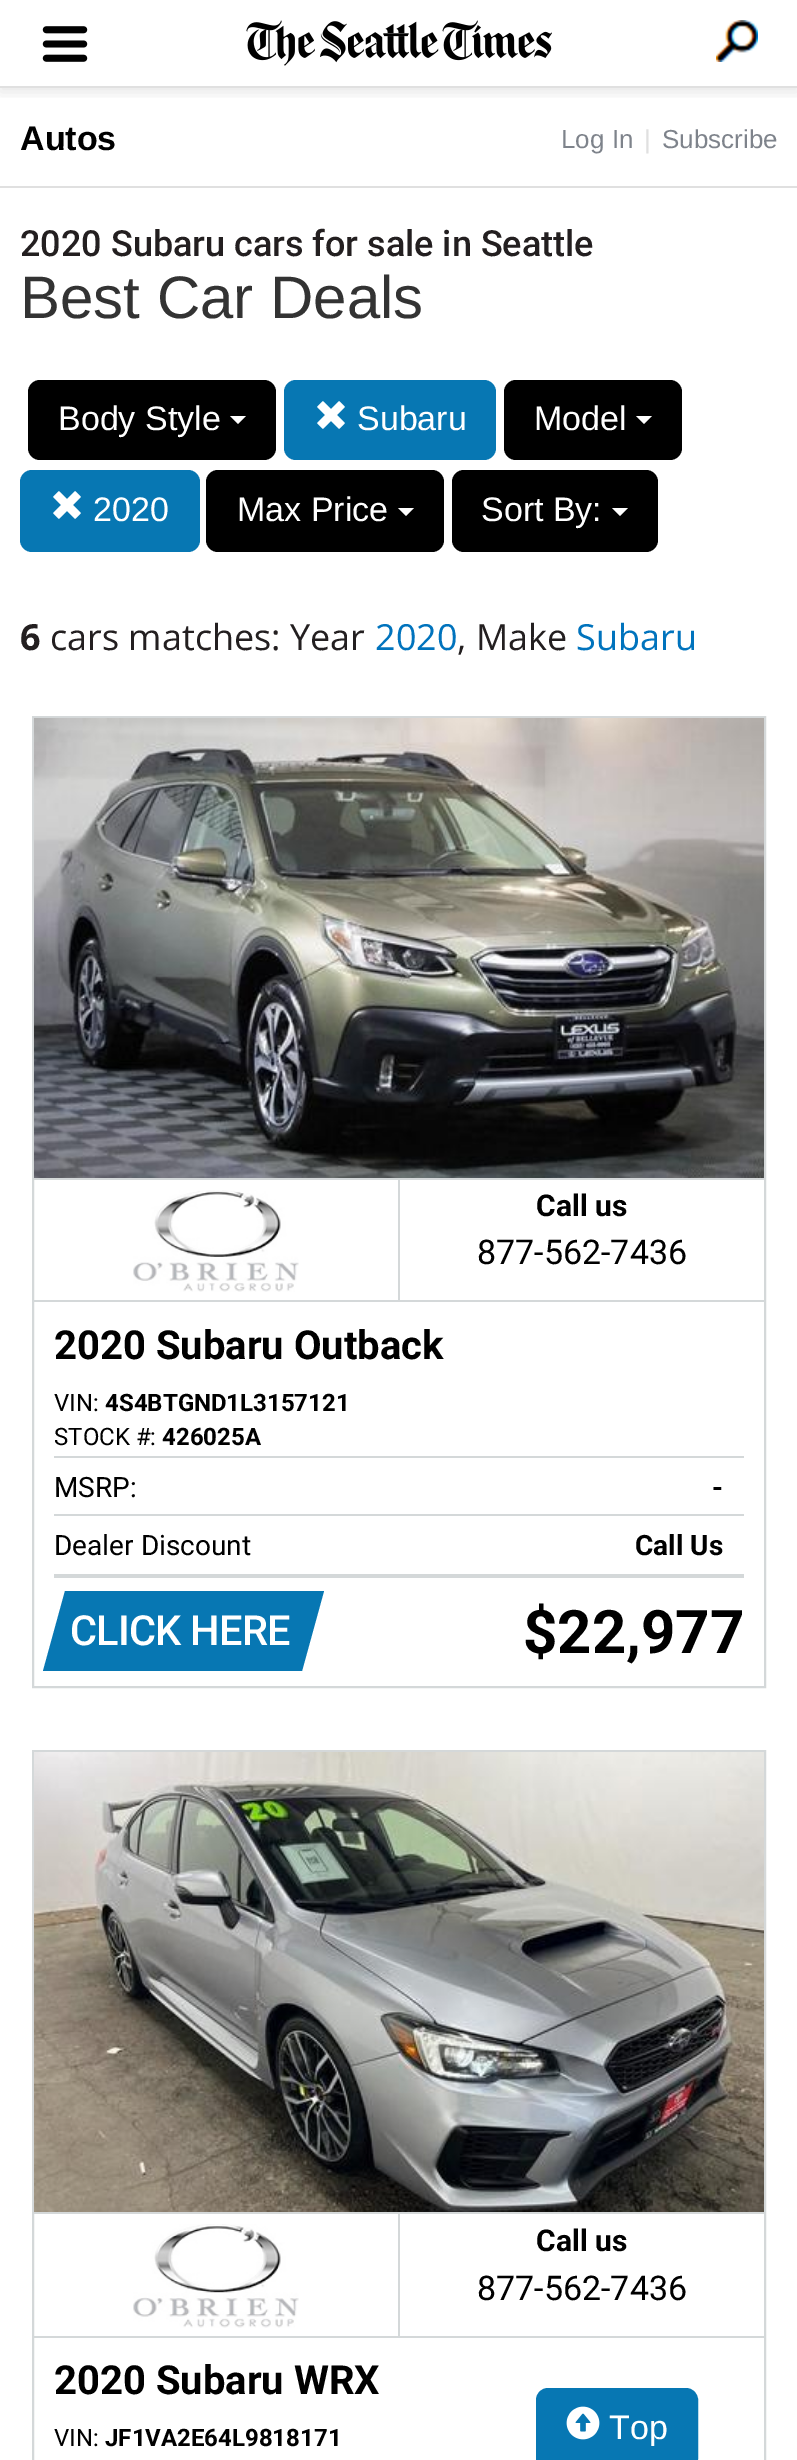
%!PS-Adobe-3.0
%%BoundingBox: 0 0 797 2460
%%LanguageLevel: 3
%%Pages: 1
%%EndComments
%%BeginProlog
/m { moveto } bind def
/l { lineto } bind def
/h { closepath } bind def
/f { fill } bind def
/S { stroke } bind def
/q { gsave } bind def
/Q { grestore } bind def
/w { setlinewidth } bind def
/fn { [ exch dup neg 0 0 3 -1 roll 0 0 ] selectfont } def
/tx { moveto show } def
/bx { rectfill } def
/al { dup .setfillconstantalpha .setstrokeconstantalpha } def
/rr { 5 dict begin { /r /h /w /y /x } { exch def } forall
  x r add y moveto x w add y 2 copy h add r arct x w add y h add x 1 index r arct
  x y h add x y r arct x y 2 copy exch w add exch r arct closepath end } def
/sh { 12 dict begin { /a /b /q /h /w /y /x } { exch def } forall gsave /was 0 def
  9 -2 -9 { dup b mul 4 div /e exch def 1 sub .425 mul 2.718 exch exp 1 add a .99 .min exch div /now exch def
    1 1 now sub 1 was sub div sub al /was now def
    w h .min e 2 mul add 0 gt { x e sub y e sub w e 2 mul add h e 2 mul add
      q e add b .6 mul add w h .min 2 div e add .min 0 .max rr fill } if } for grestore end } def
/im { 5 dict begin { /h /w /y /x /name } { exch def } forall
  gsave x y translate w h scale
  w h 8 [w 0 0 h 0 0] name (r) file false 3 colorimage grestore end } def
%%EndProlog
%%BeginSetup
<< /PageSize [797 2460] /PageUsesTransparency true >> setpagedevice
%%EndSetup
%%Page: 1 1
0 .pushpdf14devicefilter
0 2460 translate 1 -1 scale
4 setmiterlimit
1 setgray
0 0 797 2460 bx
q
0 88 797 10 rectclip
0 setgray
0 4 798 88 0 7 0.1 sh
Q
0.878 setgray
0 86 797 2 bx
(image0.raw) 42 26 46 36 im
(image1.raw) 246 20 306 46 im
(image2.raw) 716 20 42 42 im
0 186 797 2 bx
/LiberationSans-Bold 34 fn
0 setgray
(Autos) 20 150 tx
/LiberationSans-Regular 26 fn
0.494 0.514 0.545 setrgbcolor
(Log In) 561 148 tx
0.878 setgray
(|) 644 148 tx
0.494 0.514 0.545 setrgbcolor
(Subscribe) 662 148 tx
/Roboto-Medium 36 fn
0.137 0.122 0.125 setrgbcolor
(2020 Subaru cars for sale in Seattle) 20 256 tx
/LiberationSans-Regular 60 fn
0.2 setgray
(Best Car Deals) 20 318 tx
0 setgray
28 380 248 80 12 rr f
/LiberationSans-Regular 34 fn
1 setgray
(Body Style) 58 430 tx
230 416 m 246 416 l 238 424 l h f
0.027 0.467 0.702 setrgbcolor
284 380 212 80 12 rr f
(image3.raw) 317 401 28 28 im
1 setgray
(Subaru) 357 430 tx
0 setgray
504 380 178 80 12 rr f
1 setgray
(Model) 534 430 tx
636 416 m 652 416 l 644 424 l h f
0.027 0.467 0.702 setrgbcolor
20 470 180 82 12 rr f
(image3.raw) 53 491 28 28 im
1 setgray
(2020) 93 521 tx
0 setgray
206 470 238 82 12 rr f
1 setgray
(Max Price) 237 521 tx
398 508 m 414 508 l 406 516 l h f
0 setgray
452 470 206 82 12 rr f
1 setgray
(Sort By:) 481 521 tx
612 508 m 628 508 l 620 516 l h f
/OpenSans-Bold 36 fn
0.137 0.122 0.125 setrgbcolor
(6) 20 650 tx
/OpenSans-Regular 36 fn
(cars matches: Year) 50 650 tx
0 0.451 0.741 setrgbcolor
(2020) 375 650 tx
0.137 0.122 0.125 setrgbcolor
(, Make) 457 650 tx
0 0.451 0.741 setrgbcolor
(Subaru) 576 650 tx
0.831 0.847 0.851 setrgbcolor
2 w
33 717 732 970 rectstroke
(image4.raw) 34 718 730 460 im
34 1178 730 2 bx
398 1178 2 124 bx
34 1300 730 2 bx
(image5.raw) 133 1190 166 102 im
/Roboto-Bold 30 fn
0 setgray
(Call us) 536 1216 tx
/Roboto-Regular 34 fn
(877-562-7436) 477 1264 tx
/Roboto-Bold 40 fn
(2020 Subaru Outback) 54 1359 tx
/Roboto-Regular 24 fn
(VIN:) 54 1411 tx
/Roboto-Bold 24 fn
(4S4BTGND1L3157121) 105 1411 tx
/Roboto-Regular 24 fn
(STOCK #:) 54 1445 tx
/Roboto-Bold 24 fn
(426025A) 162 1445 tx
0.831 0.847 0.851 setrgbcolor
54 1456 690 2 bx
54 1514 690 2 bx
/Roboto-Regular 28 fn
0 setgray
(MSRP:) 54 1497 tx
/Roboto-Bold 28 fn
(-) 712 1497 tx
0.831 0.847 0.851 setrgbcolor
54 1574 690 4 bx
/Roboto-Regular 28 fn
0 setgray
(Dealer Discount) 54 1555 tx
/Roboto-Bold 28 fn
(Call Us) 635 1555 tx
0.027 0.467 0.702 setrgbcolor
65 1591 m 324 1591 l 302 1671 l 43 1671 l h f
/Roboto-Medium 41.5 fn
1 setgray
70 1645 m -0.75 0 (CLICK HERE) ashow
/Roboto-Bold 60 fn
0 setgray
($22,977) 523 1653 tx
0.831 0.847 0.851 setrgbcolor
33 1751 732 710 rectstroke
(image6.raw) 34 1752 730 460 im
34 2212 730 2 bx
398 2212 2 126 bx
34 2336 730 2 bx
(image7.raw) 133 2224 166 104 im
/Roboto-Bold 30 fn
0 setgray
(Call us) 536 2251 tx
/Roboto-Regular 34 fn
(877-562-7436) 477 2300 tx
/Roboto-Bold 40 fn
(2020 Subaru WRX) 54 2394 tx
/Roboto-Regular 24 fn
(VIN:) 54 2446 tx
/Roboto-Bold 24 fn
(JF1VA2E64L9818171) 105 2446 tx
0.027 0.467 0.702 setrgbcolor
537 2389 160 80 11 rr q f Q
S
(image8.raw) 566 2406 34 34 im
/LiberationSans-Regular 34 fn
1 setgray
(Top) 609 2439 tx
.poppdf14devicefilter showpage
%%EOF
